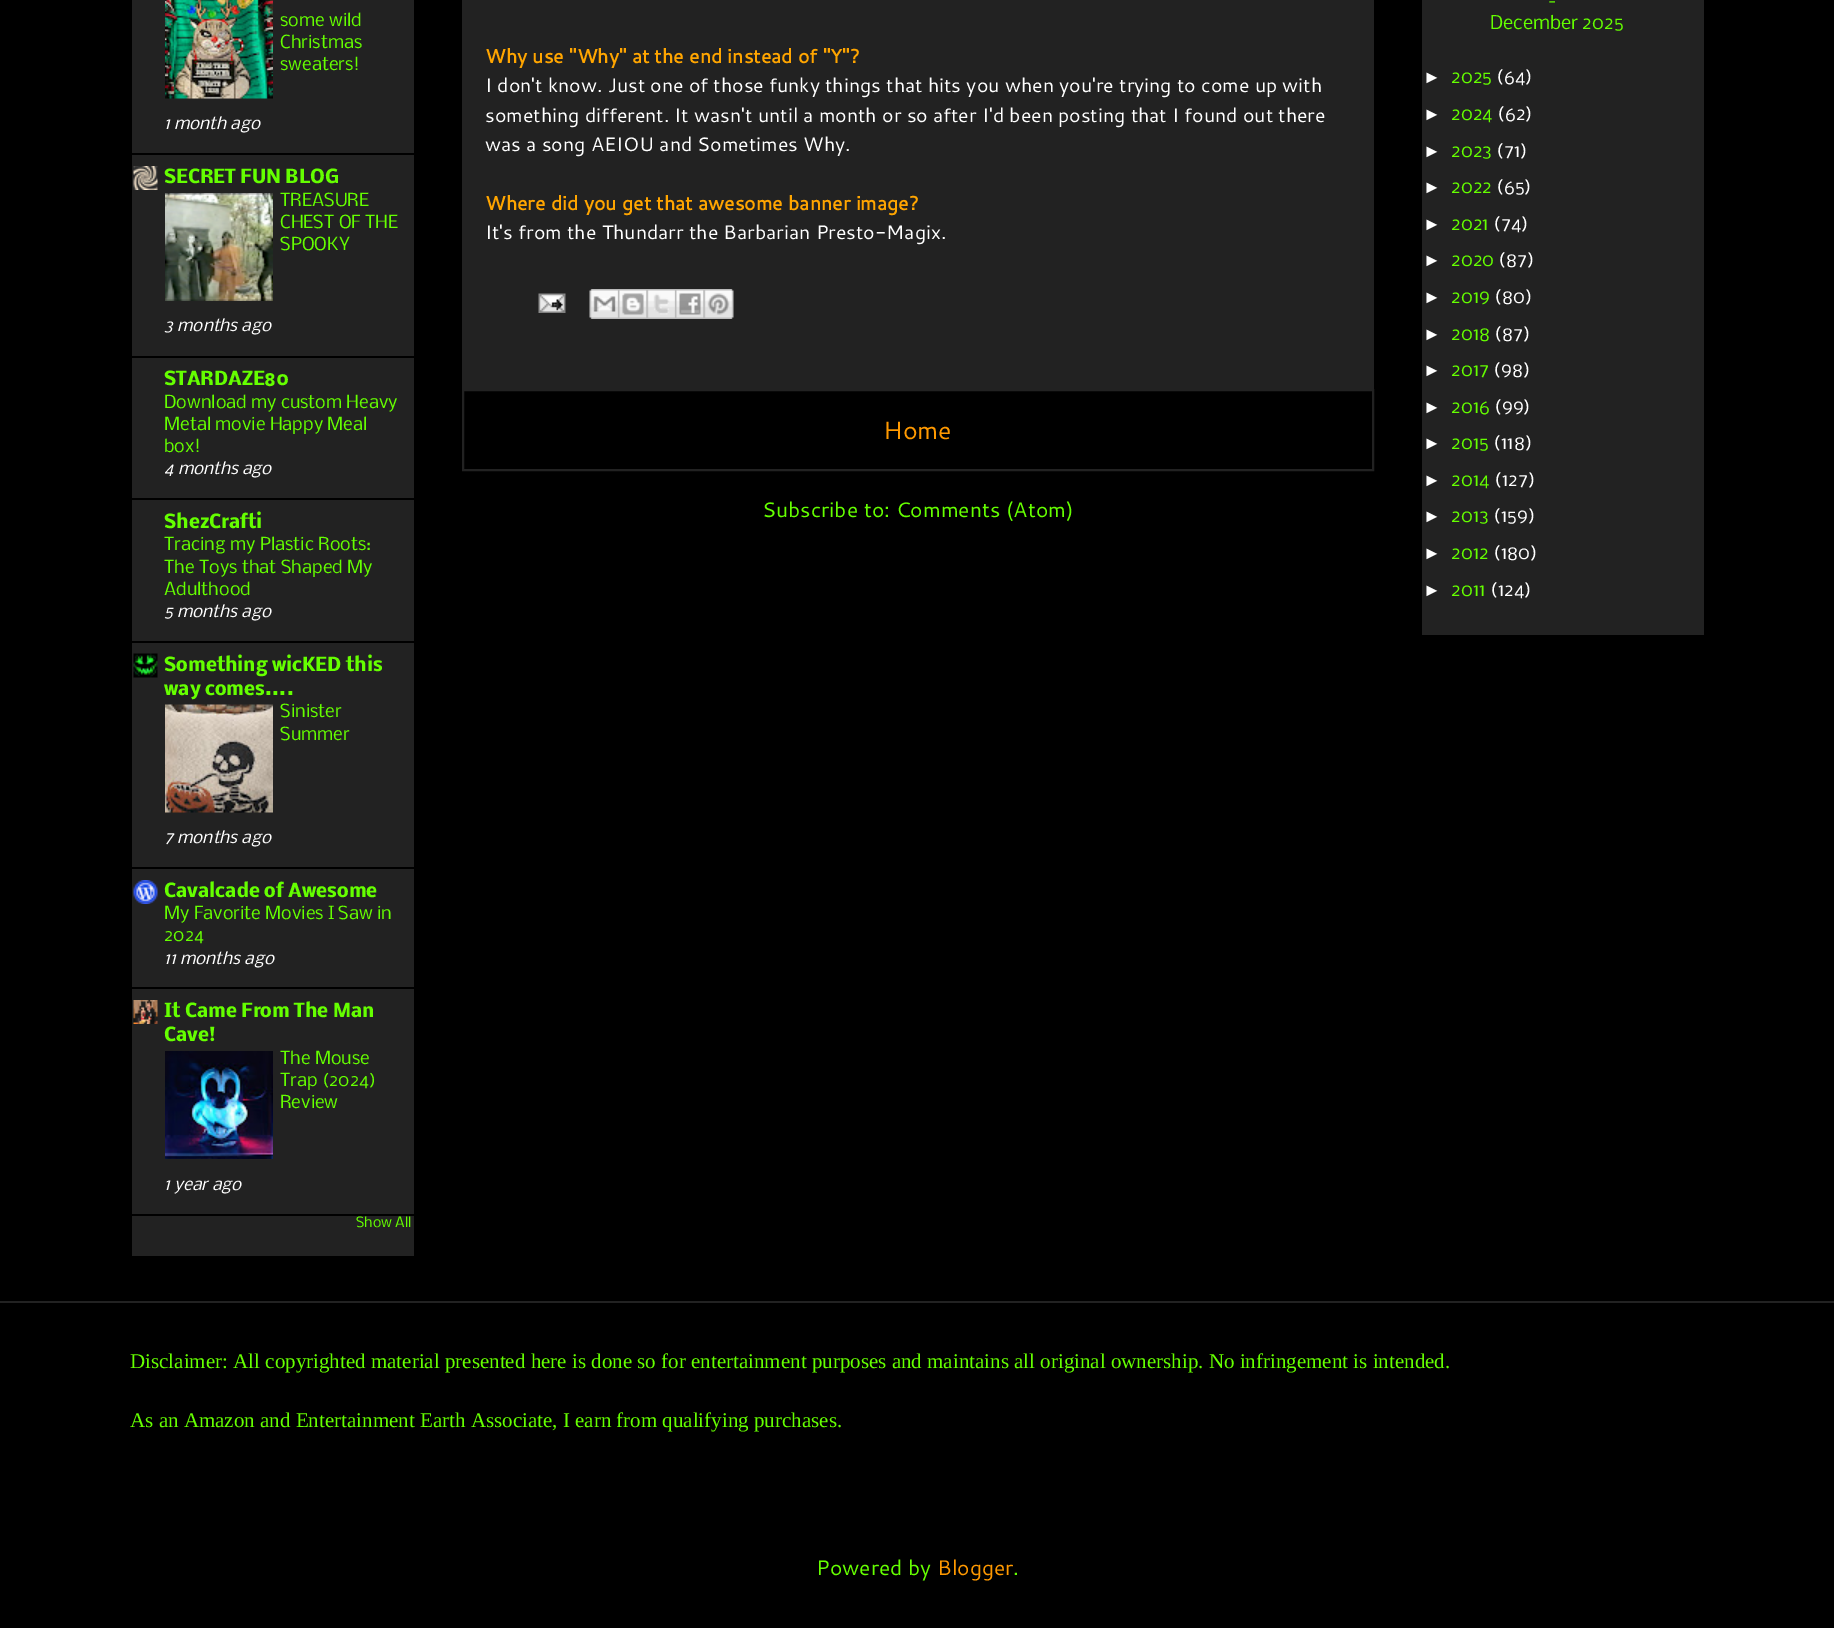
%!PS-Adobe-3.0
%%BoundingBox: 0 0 1834 1628
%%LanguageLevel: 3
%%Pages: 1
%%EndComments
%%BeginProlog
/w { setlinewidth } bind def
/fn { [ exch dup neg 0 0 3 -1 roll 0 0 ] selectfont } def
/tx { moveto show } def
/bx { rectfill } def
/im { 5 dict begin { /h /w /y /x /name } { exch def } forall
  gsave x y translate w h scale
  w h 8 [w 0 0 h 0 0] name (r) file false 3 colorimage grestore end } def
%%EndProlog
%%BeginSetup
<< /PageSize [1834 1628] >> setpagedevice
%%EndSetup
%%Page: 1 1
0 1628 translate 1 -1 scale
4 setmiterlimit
0 setgray
0 0 1834 1628 bx
0.133 setgray
132 0 282 1256 bx
0 setgray
132 153 282 2 bx
(image0.raw) 165 0 108 99 im
/Nobile-Regular 17.1 fn
0.396 1 0 setrgbcolor
(some wild) 280 26 tx
(Christmas) 280 48 tx
(sweaters!) 280 70 tx
/Nobile-Italic 16.25 fn
1 setgray
(1 month ago) 164 129 tx
0 setgray
132 356 282 2 bx
(image1.raw) 133 166 25 24 im
/Nobile-Bold 18 fn
0.396 1 0 setrgbcolor
(SECRET FUN BLOG) 164 183 tx
(image2.raw) 165 193 108 108 im
/Nobile-Regular 17.1 fn
(TREASURE) 280 206 tx
(CHEST OF THE) 280 228 tx
(SPOOKY) 280 250 tx
/Nobile-Italic 16.25 fn
1 setgray
(3 months ago) 164 331 tx
0 setgray
132 498 282 2 bx
/Nobile-Bold 18 fn
0.396 1 0 setrgbcolor
(STARDAZE80) 164 385 tx
/Nobile-Regular 17.1 fn
(Download my custom Heavy) 164 408 tx
(Metal movie Happy Meal) 164 430 tx
(box!) 164 452 tx
/Nobile-Italic 16.25 fn
1 setgray
(4 months ago) 164 474 tx
0 setgray
132 641 282 2 bx
/Nobile-Bold 18 fn
0.396 1 0 setrgbcolor
(ShezCrafti) 164 528 tx
/Nobile-Regular 17.1 fn
(Tracing my Plastic Roots:) 164 550 tx
(The Toys that Shaped My) 164 573 tx
(Adulthood) 164 595 tx
/Nobile-Italic 16.25 fn
1 setgray
(5 months ago) 164 617 tx
0 setgray
132 867 282 2 bx
(image3.raw) 133 653 25 25 im
/Nobile-Bold 18 fn
0.396 1 0 setrgbcolor
(Something wicKED this) 164 671 tx
(way comes....) 164 695 tx
(image4.raw) 165 704 108 109 im
/Nobile-Regular 17.1 fn
(Sinister) 280 717 tx
(Summer) 280 740 tx
/Nobile-Italic 16.25 fn
1 setgray
(7 months ago) 164 843 tx
0 setgray
132 987 282 2 bx
(image5.raw) 133 880 25 24 im
/Nobile-Bold 18 fn
0.396 1 0 setrgbcolor
(Cavalcade of Awesome) 164 897 tx
/Nobile-Regular 17.1 fn
(My Favorite Movies I Saw in) 164 919 tx
(2024) 164 941 tx
/Nobile-Italic 16.25 fn
1 setgray
(11 months ago) 164 964 tx
0 setgray
132 1214 282 2 bx
(image6.raw) 133 1000 25 24 im
/Nobile-Bold 18 fn
0.396 1 0 setrgbcolor
(It Came From The Man) 164 1017 tx
(Cave!) 164 1041 tx
(image7.raw) 165 1051 108 108 im
/Nobile-Regular 17.1 fn
(The Mouse) 280 1064 tx
(Trap \(2024\)) 280 1086 tx
(Review) 280 1108 tx
/Nobile-Italic 16.25 fn
1 setgray
(1 year ago) 164 1190 tx
/Nobile-Regular 13.5 fn
0.396 1 0 setrgbcolor
(Show All) 356 1227 tx
0.133 setgray
462 0 912 389 bx
/Cantarell-Bold 19.5 fn
1 0.647 0 setrgbcolor
(Why use "Why" at the end instead of "Y"?) 485 63 tx
/Cantarell-Regular 19.5 fn
1 setgray
(I don't know. Just one of those funky things that hits you when you're trying to come up with) 485 92 tx
(something different. It wasn't until a month or so after I'd been posting that I found out there) 485 122 tx
(was a song AEIOU and Sometimes Why.) 485 151 tx
/Cantarell-Bold 19.5 fn
1 0.647 0 setrgbcolor
(Where did you get that awesome banner image?) 485 210 tx
/Cantarell-Regular 19.5 fn
1 setgray
(It's from the Thundarr the Barbarian Presto-Magix.) 485 239 tx
(image8.raw) 538 293 28 20 im
(image9.raw) 589 289 29 30 im
(image10.raw) 618 289 29 30 im
(image11.raw) 646 289 29 30 im
(image12.raw) 675 289 29 30 im
(image13.raw) 703 289 31 30 im
0.133 setgray
2 w
463 390 910 80 rectstroke
/Cantarell-Regular 25 fn
1 0.6 0 setrgbcolor
(Home) 883 439 tx
/Cantarell-Regular 21 fn
0.396 1 0 setrgbcolor
(Subscribe to: Comments \(Atom\)) 762 517 tx
0.133 setgray
1422 0 282 635 bx
/Nobile-Regular 18 fn
0.396 1 0 setrgbcolor
(-) 1548 7 tx
(December 2025) 1490 29 tx
/LiberationSans-Regular 18 fn
1 setgray
(►) 1423 83 tx
/Nobile-Regular 18 fn
0.396 1 0 setrgbcolor
(2025) 1451 83 tx
1 setgray
(\(64\)) 1496 83 tx
/LiberationSans-Regular 18 fn
(►) 1423 120 tx
/Nobile-Regular 18 fn
0.396 1 0 setrgbcolor
(2024) 1451 120 tx
1 setgray
(\(62\)) 1497 120 tx
/LiberationSans-Regular 18 fn
(►) 1423 157 tx
/Nobile-Regular 18 fn
0.396 1 0 setrgbcolor
(2023) 1451 157 tx
1 setgray
(\(71\)) 1496 157 tx
/LiberationSans-Regular 18 fn
(►) 1423 193 tx
/Nobile-Regular 18 fn
0.396 1 0 setrgbcolor
(2022) 1451 193 tx
1 setgray
(\(65\)) 1496 193 tx
/LiberationSans-Regular 18 fn
(►) 1423 230 tx
/Nobile-Regular 18 fn
0.396 1 0 setrgbcolor
(2021) 1451 230 tx
1 setgray
(\(74\)) 1493 230 tx
/LiberationSans-Regular 18 fn
(►) 1423 266 tx
/Nobile-Regular 18 fn
0.396 1 0 setrgbcolor
(2020) 1451 266 tx
1 setgray
(\(87\)) 1498 266 tx
/LiberationSans-Regular 18 fn
(►) 1423 303 tx
/Nobile-Regular 18 fn
0.396 1 0 setrgbcolor
(2019) 1451 303 tx
1 setgray
(\(80\)) 1494 303 tx
/LiberationSans-Regular 18 fn
(►) 1423 340 tx
/Nobile-Regular 18 fn
0.396 1 0 setrgbcolor
(2018) 1451 340 tx
1 setgray
(\(87\)) 1494 340 tx
/LiberationSans-Regular 18 fn
(►) 1423 376 tx
/Nobile-Regular 18 fn
0.396 1 0 setrgbcolor
(2017) 1451 376 tx
1 setgray
(\(98\)) 1493 376 tx
/LiberationSans-Regular 18 fn
(►) 1423 413 tx
/Nobile-Regular 18 fn
0.396 1 0 setrgbcolor
(2016) 1451 413 tx
1 setgray
(\(99\)) 1494 413 tx
/LiberationSans-Regular 18 fn
(►) 1423 449 tx
/Nobile-Regular 18 fn
0.396 1 0 setrgbcolor
(2015) 1451 449 tx
1 setgray
(\(118\)) 1493 449 tx
/LiberationSans-Regular 18 fn
(►) 1423 486 tx
/Nobile-Regular 18 fn
0.396 1 0 setrgbcolor
(2014) 1451 486 tx
1 setgray
(\(127\)) 1494 486 tx
/LiberationSans-Regular 18 fn
(►) 1423 522 tx
/Nobile-Regular 18 fn
0.396 1 0 setrgbcolor
(2013) 1451 522 tx
1 setgray
(\(159\)) 1493 522 tx
/LiberationSans-Regular 18 fn
(►) 1423 559 tx
/Nobile-Regular 18 fn
0.396 1 0 setrgbcolor
(2012) 1451 559 tx
1 setgray
(\(180\)) 1493 559 tx
/LiberationSans-Regular 18 fn
(►) 1423 596 tx
/Nobile-Regular 18 fn
0.396 1 0 setrgbcolor
(2011) 1451 596 tx
1 setgray
(\(124\)) 1490 596 tx
0.133 setgray
0 1301 1834 2 bx
/LiberationSerif-Regular 21 fn
0.396 1 0 setrgbcolor
(Disclaimer: All copyrighted material presented here is done so for entertainment purposes and maintains all original ownership. No infringement is intended.) 130 1368 tx
(As an Amazon and Entertainment Earth Associate, I earn from qualifying purchases.) 130 1427 tx
/Cantarell-Regular 21 fn
(Powered by) 816 1575 tx
1 0.6 0 setrgbcolor
(Blogger) 937 1575 tx
0.396 1 0 setrgbcolor
(.) 1013 1575 tx
showpage
%%EOF
